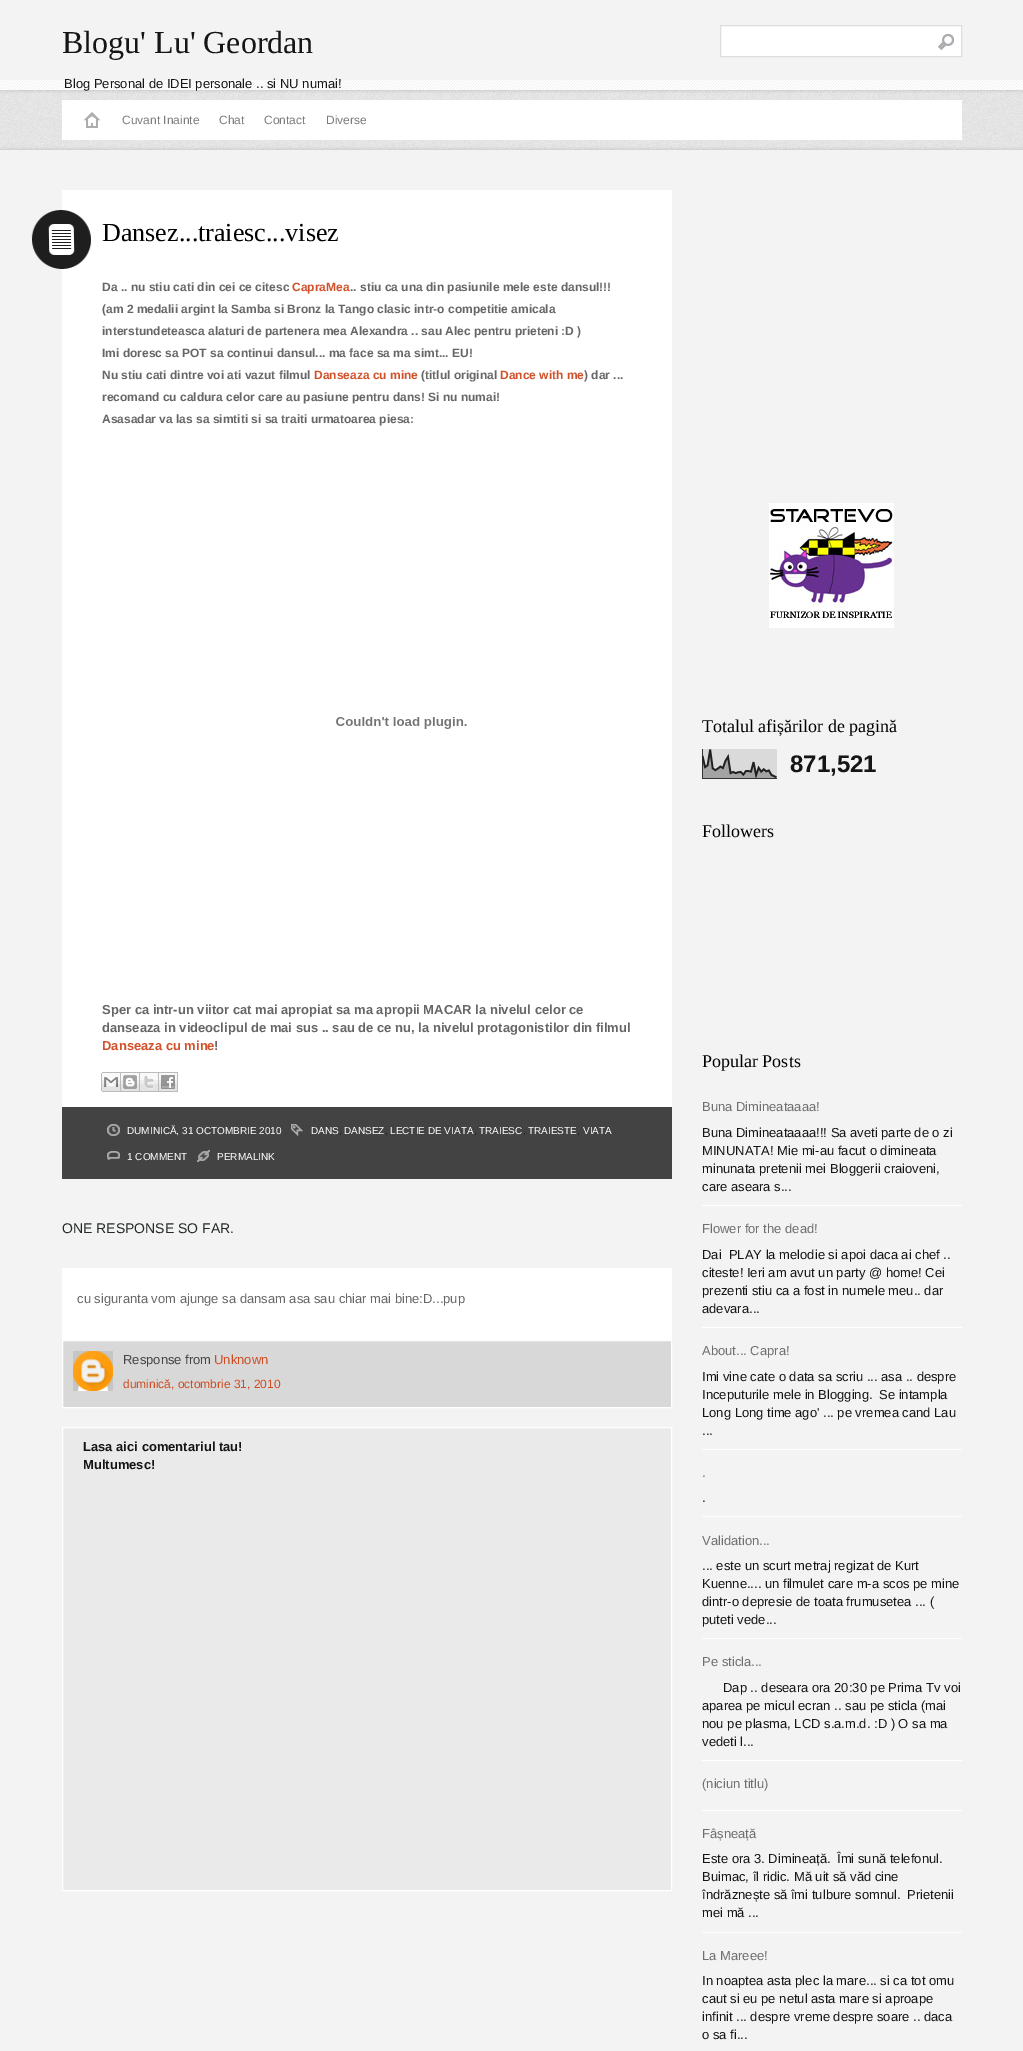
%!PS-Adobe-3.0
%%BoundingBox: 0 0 1023 2051
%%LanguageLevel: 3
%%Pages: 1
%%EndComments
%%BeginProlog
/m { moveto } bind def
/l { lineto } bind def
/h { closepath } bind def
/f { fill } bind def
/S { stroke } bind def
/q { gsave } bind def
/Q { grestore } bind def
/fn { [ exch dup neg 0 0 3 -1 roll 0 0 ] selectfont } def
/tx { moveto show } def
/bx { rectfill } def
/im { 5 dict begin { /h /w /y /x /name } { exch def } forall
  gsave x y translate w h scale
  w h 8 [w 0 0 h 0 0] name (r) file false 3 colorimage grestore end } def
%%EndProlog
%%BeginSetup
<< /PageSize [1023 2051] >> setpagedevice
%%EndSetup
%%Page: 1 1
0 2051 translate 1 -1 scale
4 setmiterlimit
0.953 setgray
0 0 1023 2051 bx
(image0.raw) 0 80 1023 10 im
/LiberationSerif-Regular 32 fn
0.086 0.082 0.078 setrgbcolor
(Blogu' Lu' Geordan) 62 53 tx
(image2.raw) 0 90 1023 60 im
/LiberationSans-Regular 13 fn
(Blog Personal de IDEI personale .. si NU numai!) 64 88 tx
1 setgray
720.5 25.5 m 961.5 25.5 l 961.5 56.5 l 720.5 56.5 l h q f Q
0.867 setgray
S
(image1.raw) 938 34 16 16 im
1 setgray
62 100 900 40 bx
(image3.raw) 84 112 16 16 im
/LiberationSans-Regular 12 fn
0.486 setgray
(Cuvant Inainte) 122 124 tx
(Chat) 219 124 tx
(Contact) 264 124 tx
(Diverse) 326 124 tx
1 setgray
62 190 610 917 bx
(image4.raw) 31 210 61 59 im
/LiberationSerif-Regular 26 fn
0 setgray
(Dansez...traiesc...visez) 102 241 tx
/LiberationSans-Bold 12 fn
0.4 setgray
(Da .. nu stiu cati din cei ce citesc) 102 291 tx
0.82 0.318 0.165 setrgbcolor
(CapraMea) 292 291 tx
0.4 setgray
(.. stiu ca una din pasiunile mele este dansul!!!) 350 291 tx
(\(am 2 medalii argint la Samba si Bronz la Tango clasic intr-o competitie amicala) 102 313 tx
(interstundeteasca alaturi de partenera mea Alexandra .. sau Alec pentru prieteni :D \)) 102 335 tx
(Imi doresc sa POT sa continui dansul... ma face sa ma simt... EU!) 102 357 tx
(Nu stiu cati dintre voi ati vazut filmul) 102 379 tx
0.82 0.318 0.165 setrgbcolor
(Danseaza cu mine) 314 379 tx
0.4 setgray
(\(titlul original) 421 379 tx
0.82 0.318 0.165 setrgbcolor
(Dance with me) 500 379 tx
0.4 setgray
(\) dar ...) 584 379 tx
(recomand cu caldura celor care au pasiune pentru dans! Si nu numai!) 102 401 tx
(Asasadar va las sa simtiti si sa traiti urmatoarea piesa:) 102 423 tx
(image5.raw) 336 717 131 12 im
/LiberationSans-Bold 13 fn
(Sper ca intr-un viitor cat mai apropiat sa ma apropii MACAR la nivelul celor ce) 102 1014 tx
(danseaza in videoclipul de mai sus .. sau de ce nu, la nivelul protagonistilor din filmul) 102 1032 tx
0.82 0.318 0.165 setrgbcolor
(Danseaza cu mine) 102 1050 tx
0.4 setgray
(!) 214 1050 tx
(image6.raw) 101 1072 20 20 im
(image7.raw) 121 1072 19 20 im
(image8.raw) 140 1072 19 20 im
(image9.raw) 159 1072 19 20 im
0.263 setgray
62 1107 610 72 bx
(image10.raw) 107 1124 13 12 im
/LiberationSans-Regular 10 fn
1 setgray
(DUMINICĂ, 31 OCTOMBRIE 2010) 127 1134 tx
(image11.raw) 291 1124 12 12 im
(DANS) 311 1134 tx
0.118 setgray
(,) 339 1134 tx
1 setgray
(DANSEZ) 344 1134 tx
0.118 setgray
(,) 385 1134 tx
1 setgray
(LECTIE DE VIATA) 390 1134 tx
0.118 setgray
(,) 474 1134 tx
1 setgray
(TRAIESC) 479 1134 tx
0.118 setgray
(,) 523 1134 tx
1 setgray
(TRAIESTE) 528 1134 tx
0.118 setgray
(,) 577 1134 tx
1 setgray
(VIATA) 583 1134 tx
(image12.raw) 107 1151 13 9 im
(1 COMMENT) 127 1160 tx
(image13.raw) 197 1150 13 12 im
(PERMALINK) 217 1160 tx
/LiberationSans-Regular 14 fn
0.133 0.157 0.153 setrgbcolor
(ONE RESPONSE SO FAR.) 62 1233 tx
1 setgray
62 1268 610 72 bx
/LiberationSans-Regular 13 fn
0.4 setgray
(cu siguranta vom ajunge sa dansam asa sau chiar mai bine:D...pup) 77 1303 tx
0.847 setgray
62.5 1340.5 m 671.5 1340.5 l 671.5 1407.5 l 62.5 1407.5 l h q f Q
1 setgray
S
(image14.raw) 73 1351 40 40 im
(image15.raw) 73 1351 40 40 im
0.267 setgray
(Response from) 123 1364 tx
0.812 0.298 0.137 setrgbcolor
(Unknown) 214 1364 tx
/LiberationSans-Regular 12 fn
(duminică, octombrie 31, 2010) 123 1388 tx
0.918 setgray
62.5 1427.5 m 671.5 1427.5 l 671.5 1890.5 l 62.5 1890.5 l h q f Q
1 setgray
S
/LiberationSans-Bold 13 fn
0.086 0.082 0.078 setrgbcolor
(Lasa aici comentariul tau!) 83 1451 tx
(Multumesc!) 83 1469 tx
(image16.raw) 769 503 125 125 im
/LiberationSerif-Regular 18 fn
0 setgray
(Totalul afișărilor de pagină) 702 732 tx
(image17.raw) 702 749 75 30 im
/LiberationSans-Bold 24 fn
0.086 0.082 0.078 setrgbcolor
(871,521) 790 772 tx
/LiberationSerif-Regular 18 fn
0 setgray
(Followers) 702 837 tx
(Popular Posts) 702 1067 tx
1 setgray
702 1205 260 1 bx
/LiberationSans-Regular 13 fn
0.435 setgray
(Buna Dimineataaaa!) 702 1111 tx
0.086 0.082 0.078 setrgbcolor
(Buna Dimineataaaa!!! Sa aveti parte de o zi) 702 1137 tx
(MINUNATA! Mie mi-au facut o dimineata) 702 1155 tx
(minunata pretenii mei Bloggerii craioveni,) 702 1173 tx
(care aseara s...) 702 1191 tx
1 setgray
702 1327 260 1 bx
0.435 setgray
(Flower for the dead!) 702 1233 tx
0.086 0.082 0.078 setrgbcolor
(Dai  PLAY la melodie si apoi daca ai chef ..) 702 1259 tx
(citeste! Ieri am avut un party @ home! Cei) 702 1277 tx
(prezenti stiu ca a fost in numele meu.. dar) 702 1295 tx
(adevara...) 702 1313 tx
1 setgray
702 1449 260 1 bx
0.435 setgray
(About... Capra!) 702 1355 tx
0.086 0.082 0.078 setrgbcolor
(Imi vine cate o data sa scriu ... asa .. despre) 702 1381 tx
(Inceputurile mele in Blogging.) 702 1399 tx
(Se intampla) 879 1399 tx
(Long Long time ago' ... pe vremea cand Lau) 702 1417 tx
(...) 702 1435 tx
1 setgray
702 1516 260 1 bx
0.435 setgray
(.) 702 1477 tx
0.086 0.082 0.078 setrgbcolor
(.) 702 1502 tx
1 setgray
702 1638 260 1 bx
0.435 setgray
(Validation...) 702 1545 tx
0.086 0.082 0.078 setrgbcolor
(... este un scurt metraj regizat de Kurt) 702 1570 tx
(Kuenne.... un filmulet care m-a scos pe mine) 702 1588 tx
(dintr-o depresie de toata frumusetea ... \() 702 1606 tx
(puteti vede...) 702 1624 tx
1 setgray
702 1760 260 1 bx
0.435 setgray
(Pe sticla...) 702 1666 tx
0.086 0.082 0.078 setrgbcolor
(Dap .. deseara ora 20:30 pe Prima Tv voi) 723 1692 tx
(aparea pe micul ecran .. sau pe sticla \(mai) 702 1710 tx
(nou pe plasma, LCD s.a.m.d. :D \) O sa ma) 702 1728 tx
(vedeti l...) 702 1746 tx
1 setgray
702 1810 260 1 bx
0.435 setgray
(\(niciun titlu\)) 702 1788 tx
1 setgray
702 1932 260 1 bx
0.435 setgray
(Fâșneață) 702 1838 tx
0.086 0.082 0.078 setrgbcolor
(Este ora 3. Dimineață.) 702 1863 tx
(Îmi sună telefonul.) 837 1863 tx
(Buimac, îl ridic. Mă uit să văd cine) 702 1881 tx
(îndrăznește să îmi tulbure somnul.) 702 1899 tx
(Prietenii) 907 1899 tx
(mei mă ...) 702 1917 tx
0.435 setgray
(La Mareee!) 702 1960 tx
0.086 0.082 0.078 setrgbcolor
(In noaptea asta plec la mare... si ca tot omu) 702 1985 tx
(caut si eu pe netul asta mare si aproape) 702 2003 tx
(infinit ... despre vreme despre soare .. daca) 702 2021 tx
(o sa fi...) 702 2039 tx
showpage
%%EOF
